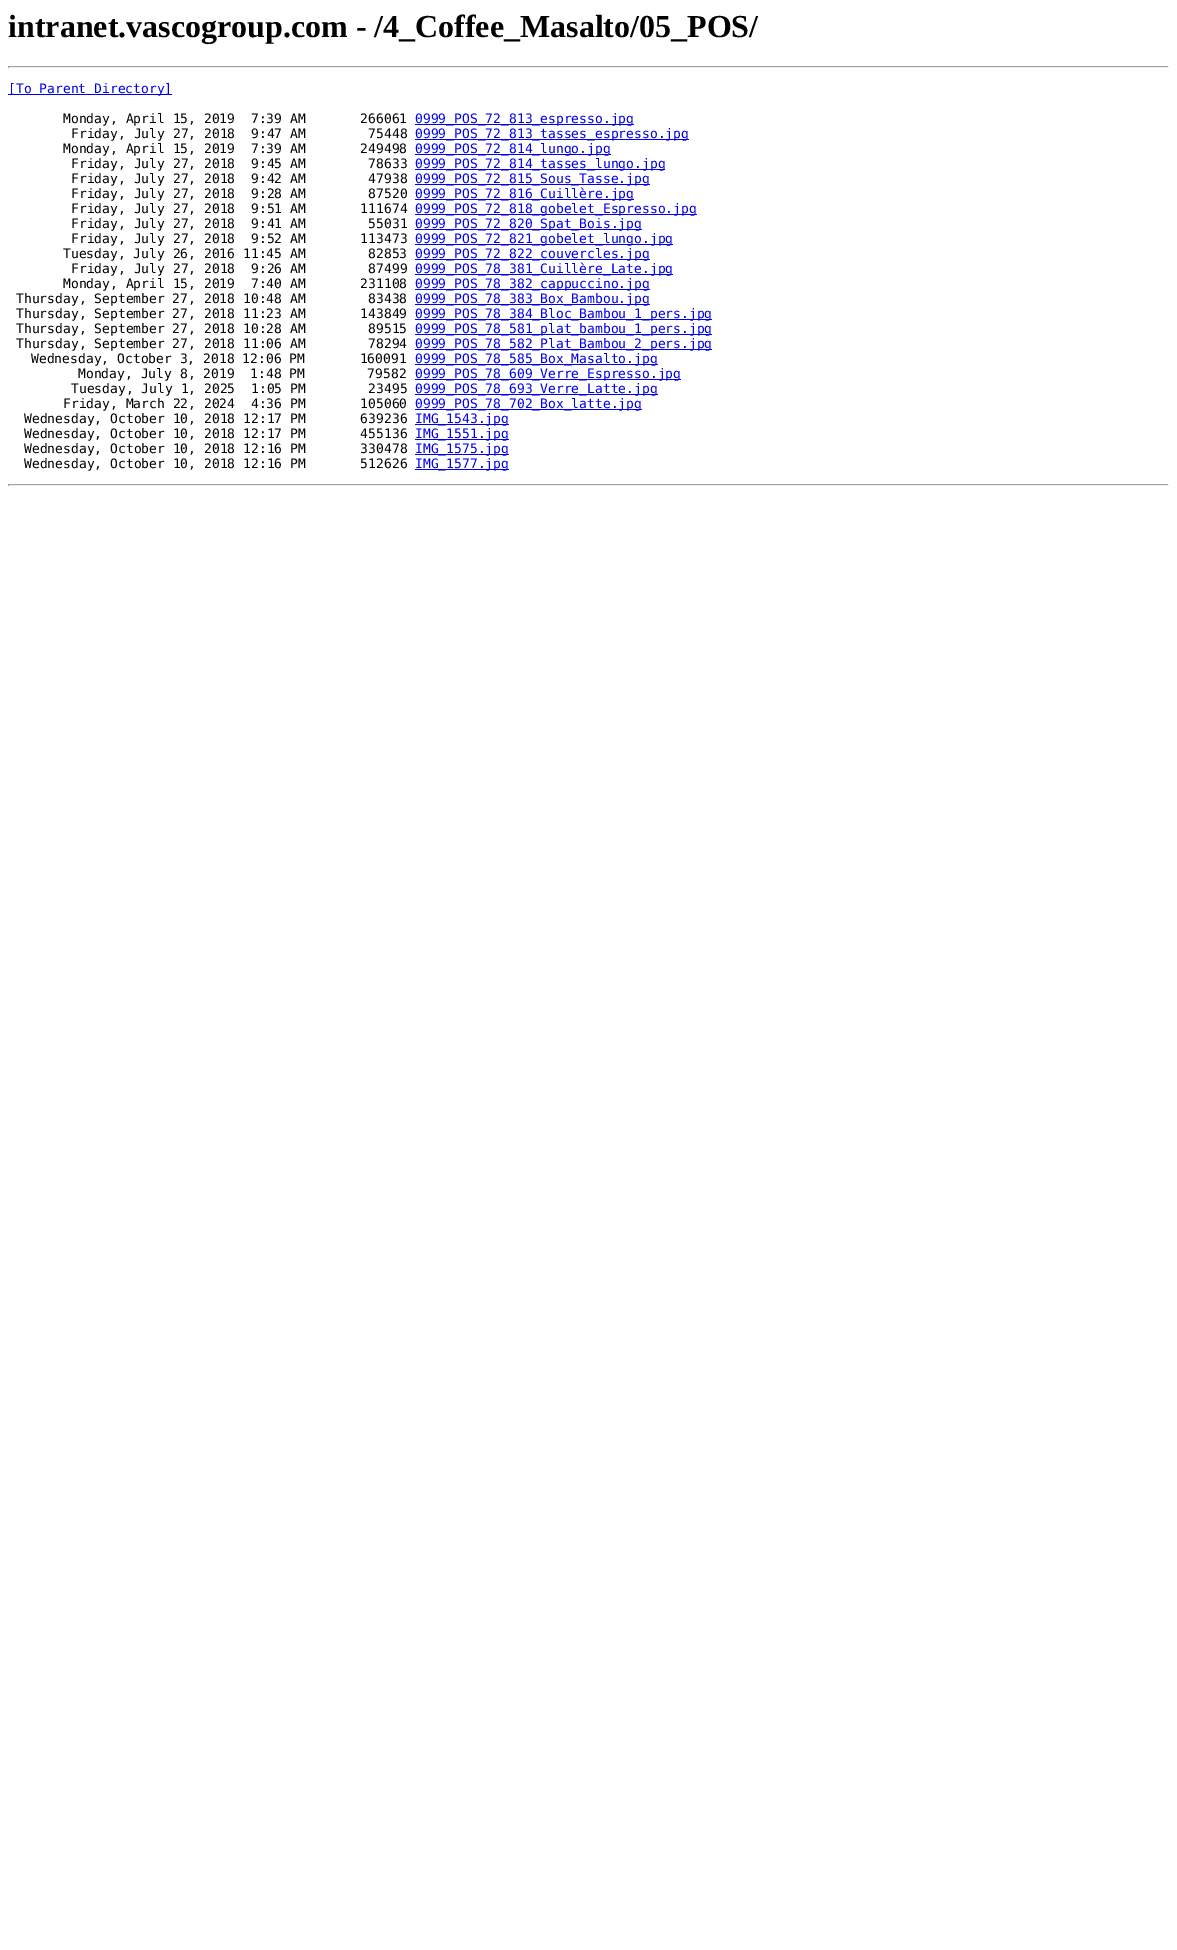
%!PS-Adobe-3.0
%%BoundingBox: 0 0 1177 1950
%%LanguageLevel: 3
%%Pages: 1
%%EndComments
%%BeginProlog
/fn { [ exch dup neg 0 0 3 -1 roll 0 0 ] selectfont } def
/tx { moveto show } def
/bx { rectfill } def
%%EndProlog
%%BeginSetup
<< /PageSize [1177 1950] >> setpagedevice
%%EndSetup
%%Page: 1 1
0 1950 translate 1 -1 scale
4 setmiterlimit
1 setgray
0 0 1177 1950 bx
/LiberationSerif-Bold 32 fn
0 setgray
(intranet.vascogroup.com - /4_Coffee_Masalto/05_POS/) 8 37 tx
0.624 setgray
8 66 1161 1 bx
0.933 setgray
1168 66 1 2 bx
8 67 1161 1 bx
0.624 setgray
8 66 1 2 bx
0 0 0.933 setrgbcolor
8 94 164 1 bx
/DejaVuSansMono-Regular 13 fn
([To Parent Directory]) 8 93 tx
0 setgray
(Monday, April 15, 2019  7:39 AM       266061) 63 123 tx
0 0 0.933 setrgbcolor
415 124 219 1 bx
(0999_POS_72_813_espresso.jpg) 415 123 tx
0 setgray
(Friday, July 27, 2018  9:47 AM        75448) 71 138 tx
0 0 0.933 setrgbcolor
415 139 274 1 bx
(0999_POS_72_813_tasses_espresso.jpg) 415 138 tx
0 setgray
(Monday, April 15, 2019  7:39 AM       249498) 63 153 tx
0 0 0.933 setrgbcolor
415 154 196 1 bx
(0999_POS_72_814_lungo.jpg) 415 153 tx
0 setgray
(Friday, July 27, 2018  9:45 AM        78633) 71 168 tx
0 0 0.933 setrgbcolor
415 169 250 1 bx
(0999_POS_72_814_tasses_lungo.jpg) 415 168 tx
0 setgray
(Friday, July 27, 2018  9:42 AM        47938) 71 183 tx
0 0 0.933 setrgbcolor
415 184 235 1 bx
(0999_POS_72_815_Sous_Tasse.jpg) 415 183 tx
0 setgray
(Friday, July 27, 2018  9:28 AM        87520) 71 198 tx
0 0 0.933 setrgbcolor
415 199 219 1 bx
(0999_POS_72_816_Cuillère.jpg) 415 198 tx
0 setgray
(Friday, July 27, 2018  9:51 AM       111674) 71 213 tx
0 0 0.933 setrgbcolor
415 214 282 1 bx
(0999_POS_72_818_gobelet_Espresso.jpg) 415 213 tx
0 setgray
(Friday, July 27, 2018  9:41 AM        55031) 71 228 tx
0 0 0.933 setrgbcolor
415 229 227 1 bx
(0999_POS_72_820_Spat_Bois.jpg) 415 228 tx
0 setgray
(Friday, July 27, 2018  9:52 AM       113473) 71 243 tx
0 0 0.933 setrgbcolor
415 244 258 1 bx
(0999_POS_72_821_gobelet_lungo.jpg) 415 243 tx
0 setgray
(Tuesday, July 26, 2016 11:45 AM        82853) 63 258 tx
0 0 0.933 setrgbcolor
415 259 235 1 bx
(0999_POS_72_822_couvercles.jpg) 415 258 tx
0 setgray
(Friday, July 27, 2018  9:26 AM        87499) 71 273 tx
0 0 0.933 setrgbcolor
415 274 258 1 bx
(0999_POS_78_381_Cuillère_Late.jpg) 415 273 tx
0 setgray
(Monday, April 15, 2019  7:40 AM       231108) 63 288 tx
0 0 0.933 setrgbcolor
415 289 235 1 bx
(0999_POS_78_382_cappuccino.jpg) 415 288 tx
0 setgray
(Thursday, September 27, 2018 10:48 AM        83438) 16 303 tx
0 0 0.933 setrgbcolor
415 304 235 1 bx
(0999_POS_78_383_Box_Bambou.jpg) 415 303 tx
0 setgray
(Thursday, September 27, 2018 11:23 AM       143849) 16 318 tx
0 0 0.933 setrgbcolor
415 319 297 1 bx
(0999_POS_78_384_Bloc_Bambou_1_pers.jpg) 415 318 tx
0 setgray
(Thursday, September 27, 2018 10:28 AM        89515) 16 333 tx
0 0 0.933 setrgbcolor
415 334 297 1 bx
(0999_POS_78_581_plat_bambou_1_pers.jpg) 415 333 tx
0 setgray
(Thursday, September 27, 2018 11:06 AM        78294) 16 348 tx
0 0 0.933 setrgbcolor
415 349 297 1 bx
(0999_POS_78_582_Plat_Bambou_2_pers.jpg) 415 348 tx
0 setgray
(Wednesday, October 3, 2018 12:06 PM       160091) 31 363 tx
0 0 0.933 setrgbcolor
415 364 243 1 bx
(0999_POS_78_585_Box_Masalto.jpg) 415 363 tx
0 setgray
(Monday, July 8, 2019  1:48 PM        79582) 78 378 tx
0 0 0.933 setrgbcolor
415 379 266 1 bx
(0999_POS_78_609_Verre_Espresso.jpg) 415 378 tx
0 setgray
(Tuesday, July 1, 2025  1:05 PM        23495) 71 393 tx
0 0 0.933 setrgbcolor
415 394 243 1 bx
(0999_POS_78_693_Verre_Latte.jpg) 415 393 tx
0 setgray
(Friday, March 22, 2024  4:36 PM       105060) 63 408 tx
0 0 0.933 setrgbcolor
415 409 227 1 bx
(0999_POS_78_702_Box_latte.jpg) 415 408 tx
0 setgray
(Wednesday, October 10, 2018 12:17 PM       639236) 24 423 tx
0 0 0.933 setrgbcolor
415 424 94 1 bx
(IMG_1543.jpg) 415 423 tx
0 setgray
(Wednesday, October 10, 2018 12:17 PM       455136) 24 438 tx
0 0 0.933 setrgbcolor
415 439 94 1 bx
(IMG_1551.jpg) 415 438 tx
0 setgray
(Wednesday, October 10, 2018 12:16 PM       330478) 24 453 tx
0 0 0.933 setrgbcolor
415 454 94 1 bx
(IMG_1575.jpg) 415 453 tx
0 setgray
(Wednesday, October 10, 2018 12:16 PM       512626) 24 468 tx
0 0 0.933 setrgbcolor
415 469 94 1 bx
(IMG_1577.jpg) 415 468 tx
0.624 setgray
8 484 1161 1 bx
0.933 setgray
1168 484 1 2 bx
8 485 1161 1 bx
0.624 setgray
8 484 1 2 bx
showpage
%%EOF
